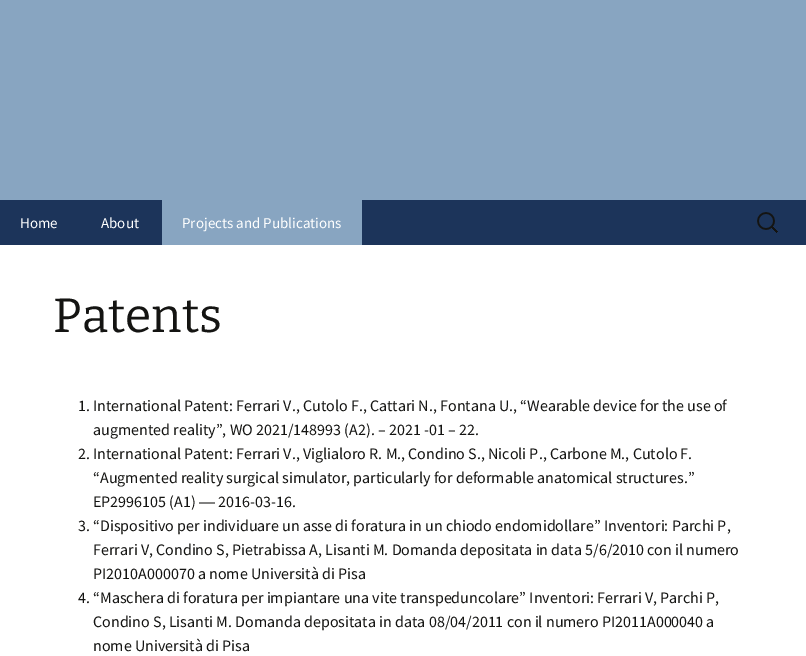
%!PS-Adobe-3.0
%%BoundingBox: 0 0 806 656
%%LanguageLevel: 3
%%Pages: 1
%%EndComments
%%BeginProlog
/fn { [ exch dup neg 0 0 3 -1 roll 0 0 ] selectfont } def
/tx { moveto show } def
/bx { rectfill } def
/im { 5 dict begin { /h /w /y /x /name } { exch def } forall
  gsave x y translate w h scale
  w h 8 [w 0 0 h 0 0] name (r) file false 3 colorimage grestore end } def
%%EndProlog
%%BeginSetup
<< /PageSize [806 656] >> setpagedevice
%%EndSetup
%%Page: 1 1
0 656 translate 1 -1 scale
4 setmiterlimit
1 setgray
0 0 806 656 bx
0.533 0.647 0.757 setrgbcolor
0 0 806 200 bx
0.11 0.204 0.353 setrgbcolor
0 200 806 45 bx
/SourceSansPro-Regular 15 fn
1 setgray
(Home) 20 228 tx
(About) 101 228 tx
0.533 0.647 0.757 setrgbcolor
162 200 200 45 bx
1 setgray
(Projects and Publications) 182 228 tx
(image0.raw) 757 212 21 21 im
/Bitter-Regular 48 fn
0.078 0.078 0.071 setrgbcolor
(Patents) 53 332 tx
/SourceSansPro-Regular 16 fn
(1. International Patent: Ferrari V., Cutolo F., Cattari N., Fontana U., “Wearable device for the use of) 78 411 tx
(augmented reality”, WO 2021/148993 \(A2\). – 2021 -01 – 22.) 93 435 tx
(2. International Patent: Ferrari V., Viglialoro R. M., Condino S., Nicoli P., Carbone M., Cutolo F.) 78 459 tx
(“Augmented reality surgical simulator, particularly for deformable anatomical structures.”) 93 483 tx
(EP2996105 \(A1\)) 93 507 tx
/LiberationSans-Regular 16 fn
(―) 199 507 tx
/SourceSansPro-Regular 16 fn
(2016-03-16.) 218 507 tx
(3. “Dispositivo per individuare un asse di foratura in un chiodo endomidollare” Inventori: Parchi P,) 78 531 tx
(Ferrari V, Condino S, Pietrabissa A, Lisanti M. Domanda depositata in data 5/6/2010 con il numero) 93 555 tx
(PI2010A000070 a nome Università di Pisa) 93 579 tx
(4. “Maschera di foratura per impiantare una vite transpeduncolare” Inventori: Ferrari V, Parchi P,) 78 603 tx
(Condino S, Lisanti M. Domanda depositata in data 08/04/2011 con il numero PI2011A000040 a) 93 627 tx
(nome Università di Pisa) 93 651 tx
showpage
%%EOF
